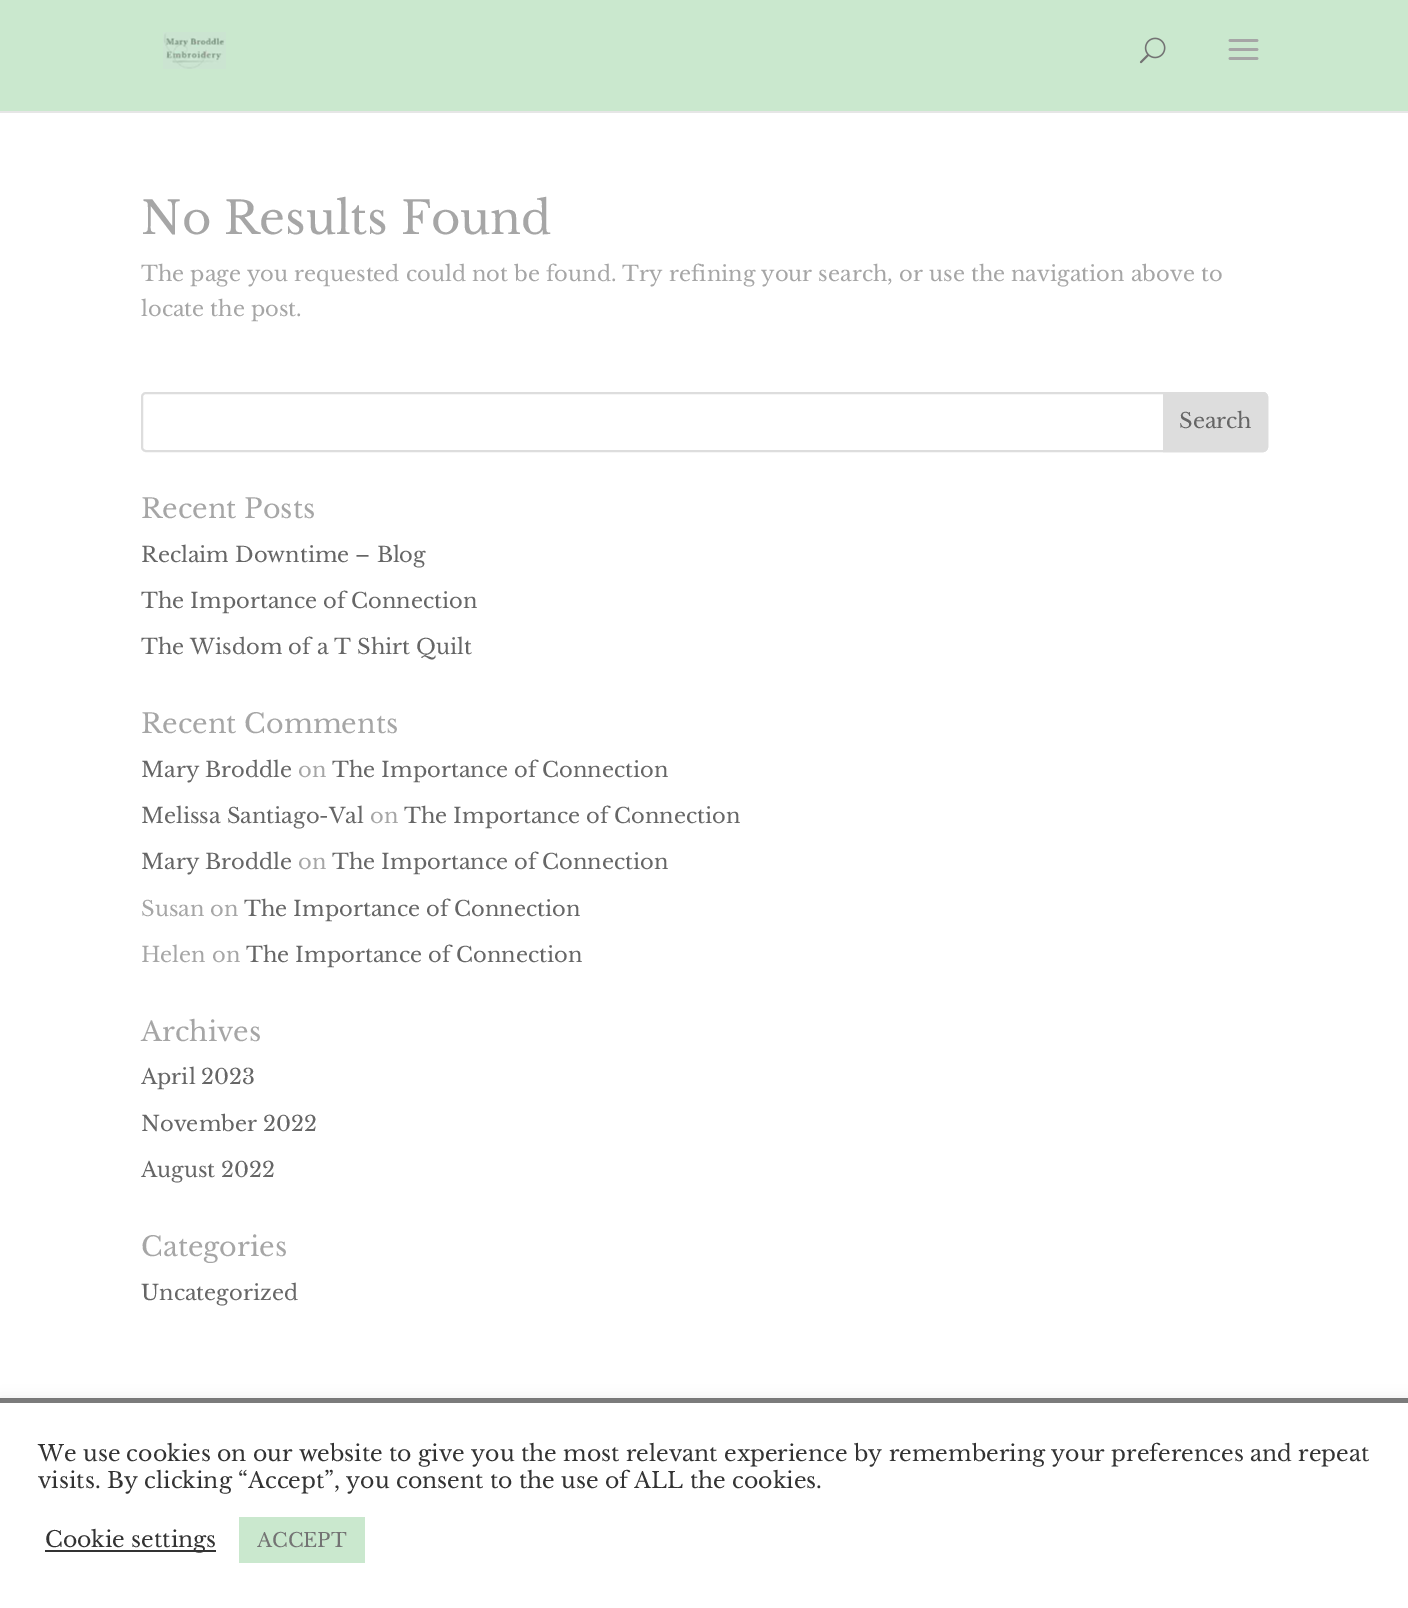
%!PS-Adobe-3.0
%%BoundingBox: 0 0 1408 1608
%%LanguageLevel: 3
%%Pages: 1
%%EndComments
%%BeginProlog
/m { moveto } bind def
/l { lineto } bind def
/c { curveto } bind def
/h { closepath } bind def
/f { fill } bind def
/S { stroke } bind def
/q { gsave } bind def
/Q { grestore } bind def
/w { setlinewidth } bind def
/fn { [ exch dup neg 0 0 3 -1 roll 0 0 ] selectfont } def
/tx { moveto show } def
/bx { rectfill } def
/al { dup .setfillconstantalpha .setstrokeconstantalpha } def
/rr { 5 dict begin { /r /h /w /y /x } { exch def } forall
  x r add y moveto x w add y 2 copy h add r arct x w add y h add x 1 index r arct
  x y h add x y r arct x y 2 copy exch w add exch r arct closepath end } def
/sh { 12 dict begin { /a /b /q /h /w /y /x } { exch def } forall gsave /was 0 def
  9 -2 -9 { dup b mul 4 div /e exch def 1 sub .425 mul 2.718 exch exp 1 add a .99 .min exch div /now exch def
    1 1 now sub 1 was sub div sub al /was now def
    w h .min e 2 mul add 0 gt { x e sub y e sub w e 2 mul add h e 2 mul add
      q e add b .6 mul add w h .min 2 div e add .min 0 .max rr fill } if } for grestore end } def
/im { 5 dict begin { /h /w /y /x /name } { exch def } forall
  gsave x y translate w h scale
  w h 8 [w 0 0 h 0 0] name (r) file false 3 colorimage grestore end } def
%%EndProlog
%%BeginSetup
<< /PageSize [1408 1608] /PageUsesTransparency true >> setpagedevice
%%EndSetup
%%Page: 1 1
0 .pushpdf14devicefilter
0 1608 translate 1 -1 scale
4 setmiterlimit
1 setgray
0 0 1408 1608 bx
0.902 setgray
0 111 m 0 113 l 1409 113 l 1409 -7 l 1408 -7 l 1408 111 l h f
0.792 0.91 0.808 setrgbcolor
0 0 1408 111 bx
(image0.raw) 163 32 63 37 im
(image1.raw) 1139 37 27 27 im
(image2.raw) 1228 39 31 21 im
/LibreBaskerville-Regular 45 fn
0.651 setgray
(No Results Found) 141 234 tx
/LibreBaskerville-Regular 21 fn
(The page you requested could not be found. Try refining your search, or use the navigation above to) 141 281 tx
(locate the post.) 141 316 tx
0.867 setgray
2 w
142 393 1125 58 4 rr S
1164 393 m 1263 393 l 1265 393 1267 395 1267 397 c 1267 447 l 1267 449 1265 451 1263 451 c 1164 451 l h q f Q
S
0.4 setgray
(Search) 1179 428 tx
/LibreBaskerville-Regular 27 fn
0.651 setgray
(Recent Posts) 141 518 tx
/LibreBaskerville-Regular 21 fn
0.4 setgray
(Reclaim Downtime – Blog) 141 562 tx
(The Importance of Connection) 141 608 tx
(The Wisdom of a T Shirt Quilt) 141 654 tx
/LibreBaskerville-Regular 27 fn
0.651 setgray
(Recent Comments) 141 733 tx
/LibreBaskerville-Regular 21 fn
0.4 setgray
(Mary Broddle) 141 777 tx
0.651 setgray
(on) 298 777 tx
0.4 setgray
(The Importance of Connection) 332 777 tx
(Melissa Santiago-Val) 141 823 tx
0.651 setgray
(on) 370 823 tx
0.4 setgray
(The Importance of Connection) 404 823 tx
(Mary Broddle) 141 869 tx
0.651 setgray
(on) 298 869 tx
0.4 setgray
(The Importance of Connection) 332 869 tx
0.651 setgray
(Susan on) 141 916 tx
0.4 setgray
(The Importance of Connection) 244 916 tx
0.651 setgray
(Helen on) 141 962 tx
0.4 setgray
(The Importance of Connection) 246 962 tx
/LibreBaskerville-Regular 27 fn
0.651 setgray
(Archives) 141 1041 tx
/LibreBaskerville-Regular 21 fn
0.4 setgray
(April 2023) 141 1084 tx
(November 2022) 141 1131 tx
(August 2022) 141 1177 tx
/LibreBaskerville-Regular 27 fn
0.651 setgray
(Categories) 141 1256 tx
/LibreBaskerville-Regular 21 fn
0.4 setgray
(Uncategorized) 141 1300 tx
0.451 setgray
0 1398 1408 5 bx
0.675 0.671 0.671 setrgbcolor
0 1401 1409 206 0 7.5 0.3 sh
1 setgray
0 1403 1408 205 bx
/LibreBaskerville-Regular 22 fn
0.2 setgray
(We use cookies on our website to give you the most relevant experience by remembering your preferences and repeat) 38 1461 tx
(visits. By clicking “Accept”, you consent to the use of ALL the cookies.) 38 1488 tx
45 1550 171 2 bx
(Cookie settings) 45 1547 tx
0.792 0.91 0.808 setrgbcolor
239 1517 126 46 bx
/LibreBaskerville-Regular 19.5 fn
0.451 setgray
(ACCEPT) 257 1547 tx
.poppdf14devicefilter showpage
%%EOF
